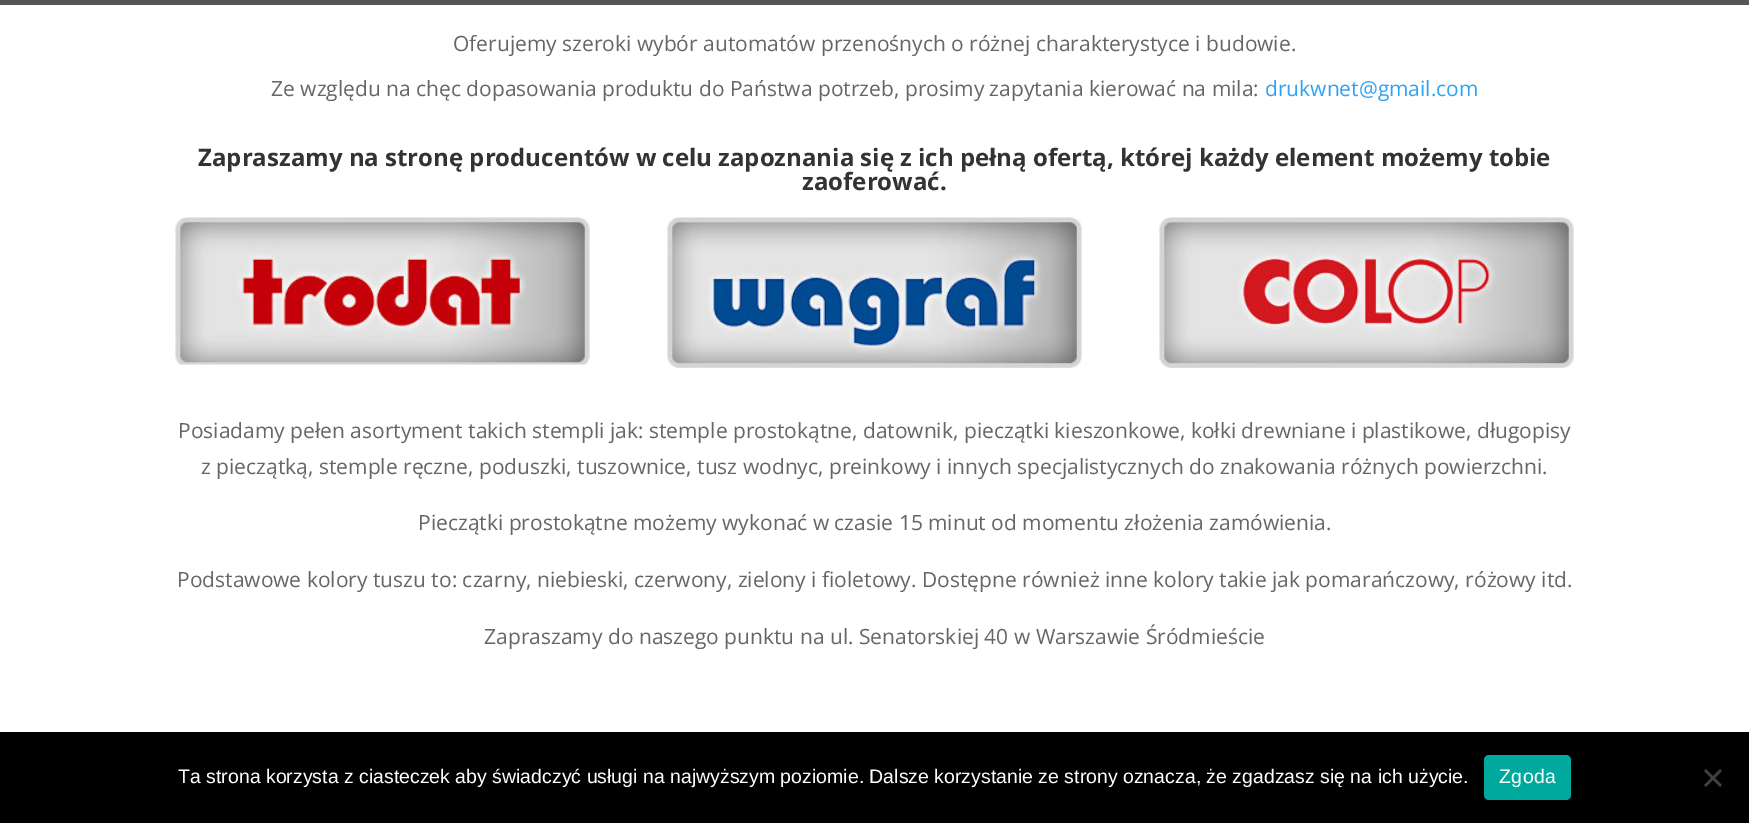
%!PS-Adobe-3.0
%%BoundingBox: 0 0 1749 823
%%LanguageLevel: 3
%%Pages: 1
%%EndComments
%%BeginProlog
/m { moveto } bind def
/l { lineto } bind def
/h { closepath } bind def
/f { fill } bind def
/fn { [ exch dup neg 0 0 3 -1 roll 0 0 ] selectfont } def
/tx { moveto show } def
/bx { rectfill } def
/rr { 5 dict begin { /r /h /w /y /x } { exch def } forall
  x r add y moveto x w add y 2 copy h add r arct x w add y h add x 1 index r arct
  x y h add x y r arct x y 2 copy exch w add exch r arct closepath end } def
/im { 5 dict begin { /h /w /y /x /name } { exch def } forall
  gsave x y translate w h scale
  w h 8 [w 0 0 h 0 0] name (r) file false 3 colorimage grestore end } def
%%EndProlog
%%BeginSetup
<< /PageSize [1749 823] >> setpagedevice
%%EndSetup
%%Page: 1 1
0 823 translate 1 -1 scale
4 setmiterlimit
1 setgray
0 0 1749 823 bx
0.341 0.333 0.337 setrgbcolor
0 0 1749 5 bx
/OpenSans-Regular 21 fn
0.4 setgray
(Oferujemy szeroki wybór automatów przenośnych o różnej charakterystyce i budowie.) 453 51 tx
(Ze względu na chęc dopasowania produktu do Państwa potrzeb, prosimy zapytania kierować na mila:) 271 96 tx
0.18 0.639 0.949 setrgbcolor
(drukwnet@gmail.com) 1265 96 tx
/OpenSans-Bold 24 fn
0.2 setgray
(Zapraszamy na stronę producentów w celu zapoznania się z ich pełną ofertą, której każdy element możemy tobie) 198 166 tx
(zaoferować.) 802 190 tx
(image0.raw) 175 217 415 148 im
(image1.raw) 667 217 415 151 im
(image2.raw) 1159 217 415 151 im
/OpenSans-Regular 21 fn
0.4 setgray
(Posiadamy pełen asortyment takich stempli jak: stemple prostokątne, datownik, pieczątki kieszonkowe, kołki drewniane i plastikowe, długopisy) 178 438 tx
(z pieczątką, stemple ręczne, poduszki, tuszownice, tusz wodnyc, preinkowy i innych specjalistycznych do znakowania różnych powierzchni.) 201 474 tx
(Pieczątki prostokątne możemy wykonać w czasie 15 minut od momentu złożenia zamówienia.) 418 530 tx
(Podstawowe kolory tuszu to: czarny, niebieski, czerwony, zielony i fioletowy. Dostępne również inne kolory takie jak pomarańczowy, różowy itd.) 177 587 tx
(Zapraszamy do naszego punktu na ul. Senatorskiej 40 w Warszawie Śródmieście) 484 644 tx
0 setgray
0 732 1749 91 bx
/LiberationSans-Regular 19.5 fn
1 setgray
(Ta strona korzysta z ciasteczek aby świadczyć usługi na najwyższym poziomie. Dalsze korzystanie ze strony oznacza, że zgadzasz się na ich użycie.) 178 783 tx
0 0.663 0.616 setrgbcolor
1484 755 87 45 5 rr f
1 setgray
1499 783 m 0.5 0 (Zgoda) ashow
0.251 setgray
1720 769 m 1722 771 l 1706 787 l 1704 785 l h f
1704 771 m 1706 769 l 1722 785 l 1720 787 l h f
showpage
%%EOF
